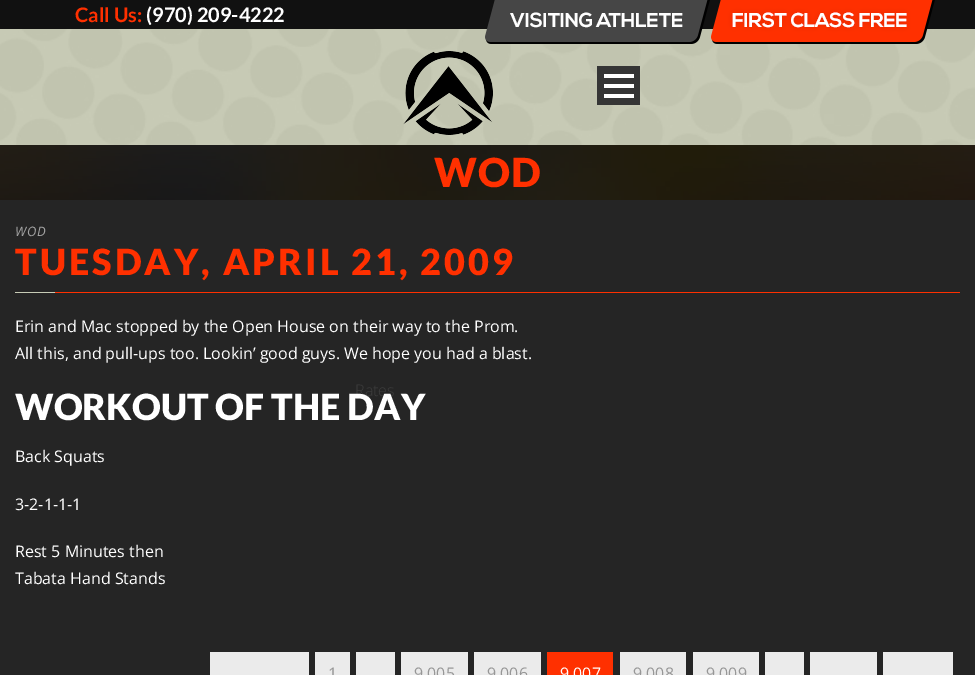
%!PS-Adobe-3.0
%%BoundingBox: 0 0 975 675
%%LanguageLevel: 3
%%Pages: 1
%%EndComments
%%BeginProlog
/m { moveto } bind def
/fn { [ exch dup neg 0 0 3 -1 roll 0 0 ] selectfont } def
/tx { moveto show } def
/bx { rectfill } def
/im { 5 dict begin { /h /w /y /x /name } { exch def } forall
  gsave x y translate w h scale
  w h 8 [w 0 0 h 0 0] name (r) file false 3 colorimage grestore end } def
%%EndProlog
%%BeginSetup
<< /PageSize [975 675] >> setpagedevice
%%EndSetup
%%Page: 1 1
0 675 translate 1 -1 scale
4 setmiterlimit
0.145 setgray
0 0 975 675 bx
0.067 setgray
0 0 975 29 bx
/Lato-Bold 20 fn
1 0.188 0 setrgbcolor
(Call Us:) 75 22 tx
1 setgray
(\(970\) 209-4222) 146 22 tx
(image2.raw) 0 29 975 116 im
(image0.raw) 485 0 225 44 im
(image1.raw) 711 0 224 44 im
(image3.raw) 403 51 90 84 im
0.208 setgray
597 66 43 39 bx
1 setgray
604 94 30 4 bx
604 84 30 4 bx
604 74 30 4 bx
/OpenSans-Light 16 fn
0.239 setgray
(Rates) 355 396 tx
(image4.raw) 0 145 975 55 im
/Lato-Black 40 fn
1 0.188 0 setrgbcolor
434 187 m 1 0 (WOD) ashow
55 292 905 1 bx
/OpenSans-Italic 13 fn
0.639 setgray
15 236 m 1 0 (WOD) ashow
/Lato-Black 36 fn
1 0.188 0 setrgbcolor
15 275 m 3 0 (TUESDAY, APRIL 21, 2009) ashow
0.78 0.796 0.714 setrgbcolor
15 292 40 1 bx
/OpenSans-Regular 16 fn
1 setgray
(Erin and Mac stopped by the Open House on their way to the Prom.) 15 332 tx
(All this, and pull-ups too. Lookin’ good guys. We hope you had a blast.) 15 359 tx
/Lato-Black 36 fn
(WORKOUT OF THE DAY) 15 420 tx
/OpenSans-Regular 16 fn
(Back Squats) 15 462 tx
(3-2-1-1-1) 15 510 tx
(Rest 5 Minutes then) 15 557 tx
(Tabata Hand Stands) 15 584 tx
0.922 setgray
210 652 99 23 bx
315 652 35 23 bx
0.592 setgray
(1) 328 679 tx
0.922 setgray
356 652 39 23 bx
401 652 67 23 bx
0.592 setgray
(9,005) 414 679 tx
0.922 setgray
474 652 67 23 bx
0.592 setgray
(9,006) 487 679 tx
1 0.188 0 setrgbcolor
547 652 66 23 bx
1 setgray
(9,007) 560 679 tx
0.922 setgray
620 652 66 23 bx
0.592 setgray
(9,008) 633 679 tx
0.922 setgray
693 652 66 23 bx
0.592 setgray
(9,009) 706 679 tx
0.922 setgray
765 652 39 23 bx
810 652 67 23 bx
883 652 70 23 bx
showpage
%%EOF
